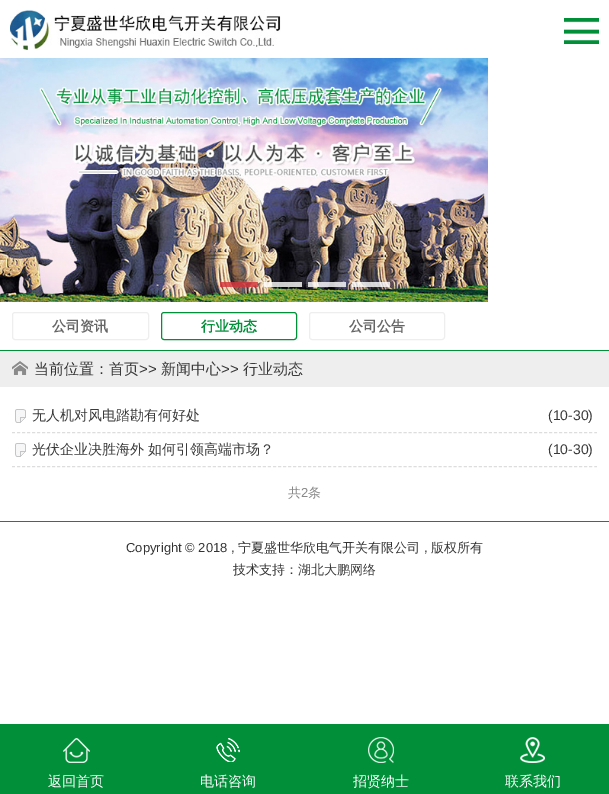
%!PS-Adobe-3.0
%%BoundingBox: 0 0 609 794
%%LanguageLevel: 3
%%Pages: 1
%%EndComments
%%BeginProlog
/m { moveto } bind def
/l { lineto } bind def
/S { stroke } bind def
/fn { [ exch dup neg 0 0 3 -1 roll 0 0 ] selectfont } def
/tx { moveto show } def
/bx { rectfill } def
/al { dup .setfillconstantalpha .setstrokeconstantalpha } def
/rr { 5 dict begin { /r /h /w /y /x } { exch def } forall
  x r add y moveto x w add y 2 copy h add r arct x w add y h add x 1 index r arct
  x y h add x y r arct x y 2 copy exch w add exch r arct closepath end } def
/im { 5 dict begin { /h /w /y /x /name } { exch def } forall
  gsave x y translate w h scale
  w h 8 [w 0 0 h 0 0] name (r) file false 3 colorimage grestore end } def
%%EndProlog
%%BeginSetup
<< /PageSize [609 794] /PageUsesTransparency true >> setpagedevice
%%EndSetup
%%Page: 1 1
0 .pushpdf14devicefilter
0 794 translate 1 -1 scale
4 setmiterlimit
1 setgray
0 0 609 794 bx
(image0.raw) 10 10 271 40 im
(image1.raw) 564 18 35 26 im
(image2.raw) 0 58 488 244 im
0.8 al
0.831 0.192 0.22 setrgbcolor
220 282 38 5 bx
1 setgray
264 282 38 5 bx
308 282 38 5 bx
352 282 38 5 bx
1 al
0.004 0.561 0.224 setrgbcolor
0 521 609 1 bx
0.933 setgray
12.5 312.5 136 27 2.5 rr S
/WenQuanYiZenHei-Bold 14 fn
0.4 setgray
(公司资讯) 52 331 tx
0.004 0.561 0.224 setrgbcolor
161.5 312.5 135 27 2.5 rr S
(行业动态) 201 331 tx
0.933 setgray
309.5 312.5 135 27 2.5 rr S
0.4 setgray
(公司公告) 349 331 tx
0.933 setgray
0 351 609 36 bx
0.004 0.561 0.224 setrgbcolor
0 350 609 1 bx
(image3.raw) 12 361 16 14 im
/WenQuanYiZenHei-Medium 15 fn
0.2 setgray
(当前位置：) 34 374 tx
0.227 setgray
(首页) 109 374 tx
/LiberationSans-Regular 15 fn
0.2 setgray
(>>) 139 374 tx
/WenQuanYiZenHei-Medium 15 fn
0.227 setgray
(新闻中心) 161 374 tx
/LiberationSans-Regular 15 fn
0.2 setgray
(>>) 221 374 tx
/WenQuanYiZenHei-Medium 15 fn
0.227 setgray
(行业动态) 243 374 tx
0.867 setgray
[3 2.02] 0 setdash
12 432.5 m 597 432.5 l S
(image4.raw) 15 409 11 14 im
/WenQuanYiZenHei-Medium 14 fn
0.227 setgray
(无人机对风电踏勘有何好处) 32 420 tx
/LiberationSans-Regular 14 fn
(\(10-30\)) 548 420 tx
0.867 setgray
12 466.5 m 597 466.5 l S
(image4.raw) 15 443 11 14 im
/WenQuanYiZenHei-Medium 14 fn
0.227 setgray
(光伏企业决胜海外 如何引领高端市场？) 32 454 tx
/LiberationSans-Regular 14 fn
(\(10-30\)) 548 454 tx
/WenQuanYiZenHei-Medium 13 fn
0.533 setgray
(共) 288 497 tx
/LiberationSans-Regular 13 fn
(2) 301 497 tx
/WenQuanYiZenHei-Medium 13 fn
(条) 308 497 tx
/LiberationSans-Regular 13 fn
0.2 setgray
(Copyright © 2018 ,) 126 552 tx
/WenQuanYiZenHei-Medium 13 fn
(宁夏盛世华欣电气开关有限公司) 238 552 tx
/LiberationSans-Regular 13 fn
(,) 424 552 tx
/WenQuanYiZenHei-Medium 13 fn
(版权所有) 431 552 tx
(技术支持：) 233 574 tx
0.227 setgray
(湖北大鹏网络) 298 574 tx
0.004 0.561 0.224 setrgbcolor
0 724 609 70 bx
(image5.raw) 63 738 27 25 im
/WenQuanYiZenHei-Medium 14 fn
1 setgray
(返回首页) 48 786 tx
(image6.raw) 216 738 24 24 im
(电话咨询) 200 786 tx
(image7.raw) 368 737 26 26 im
(招贤纳士) 353 786 tx
(image8.raw) 520 737 25 26 im
(联系我们) 505 786 tx
.poppdf14devicefilter showpage
%%EOF
